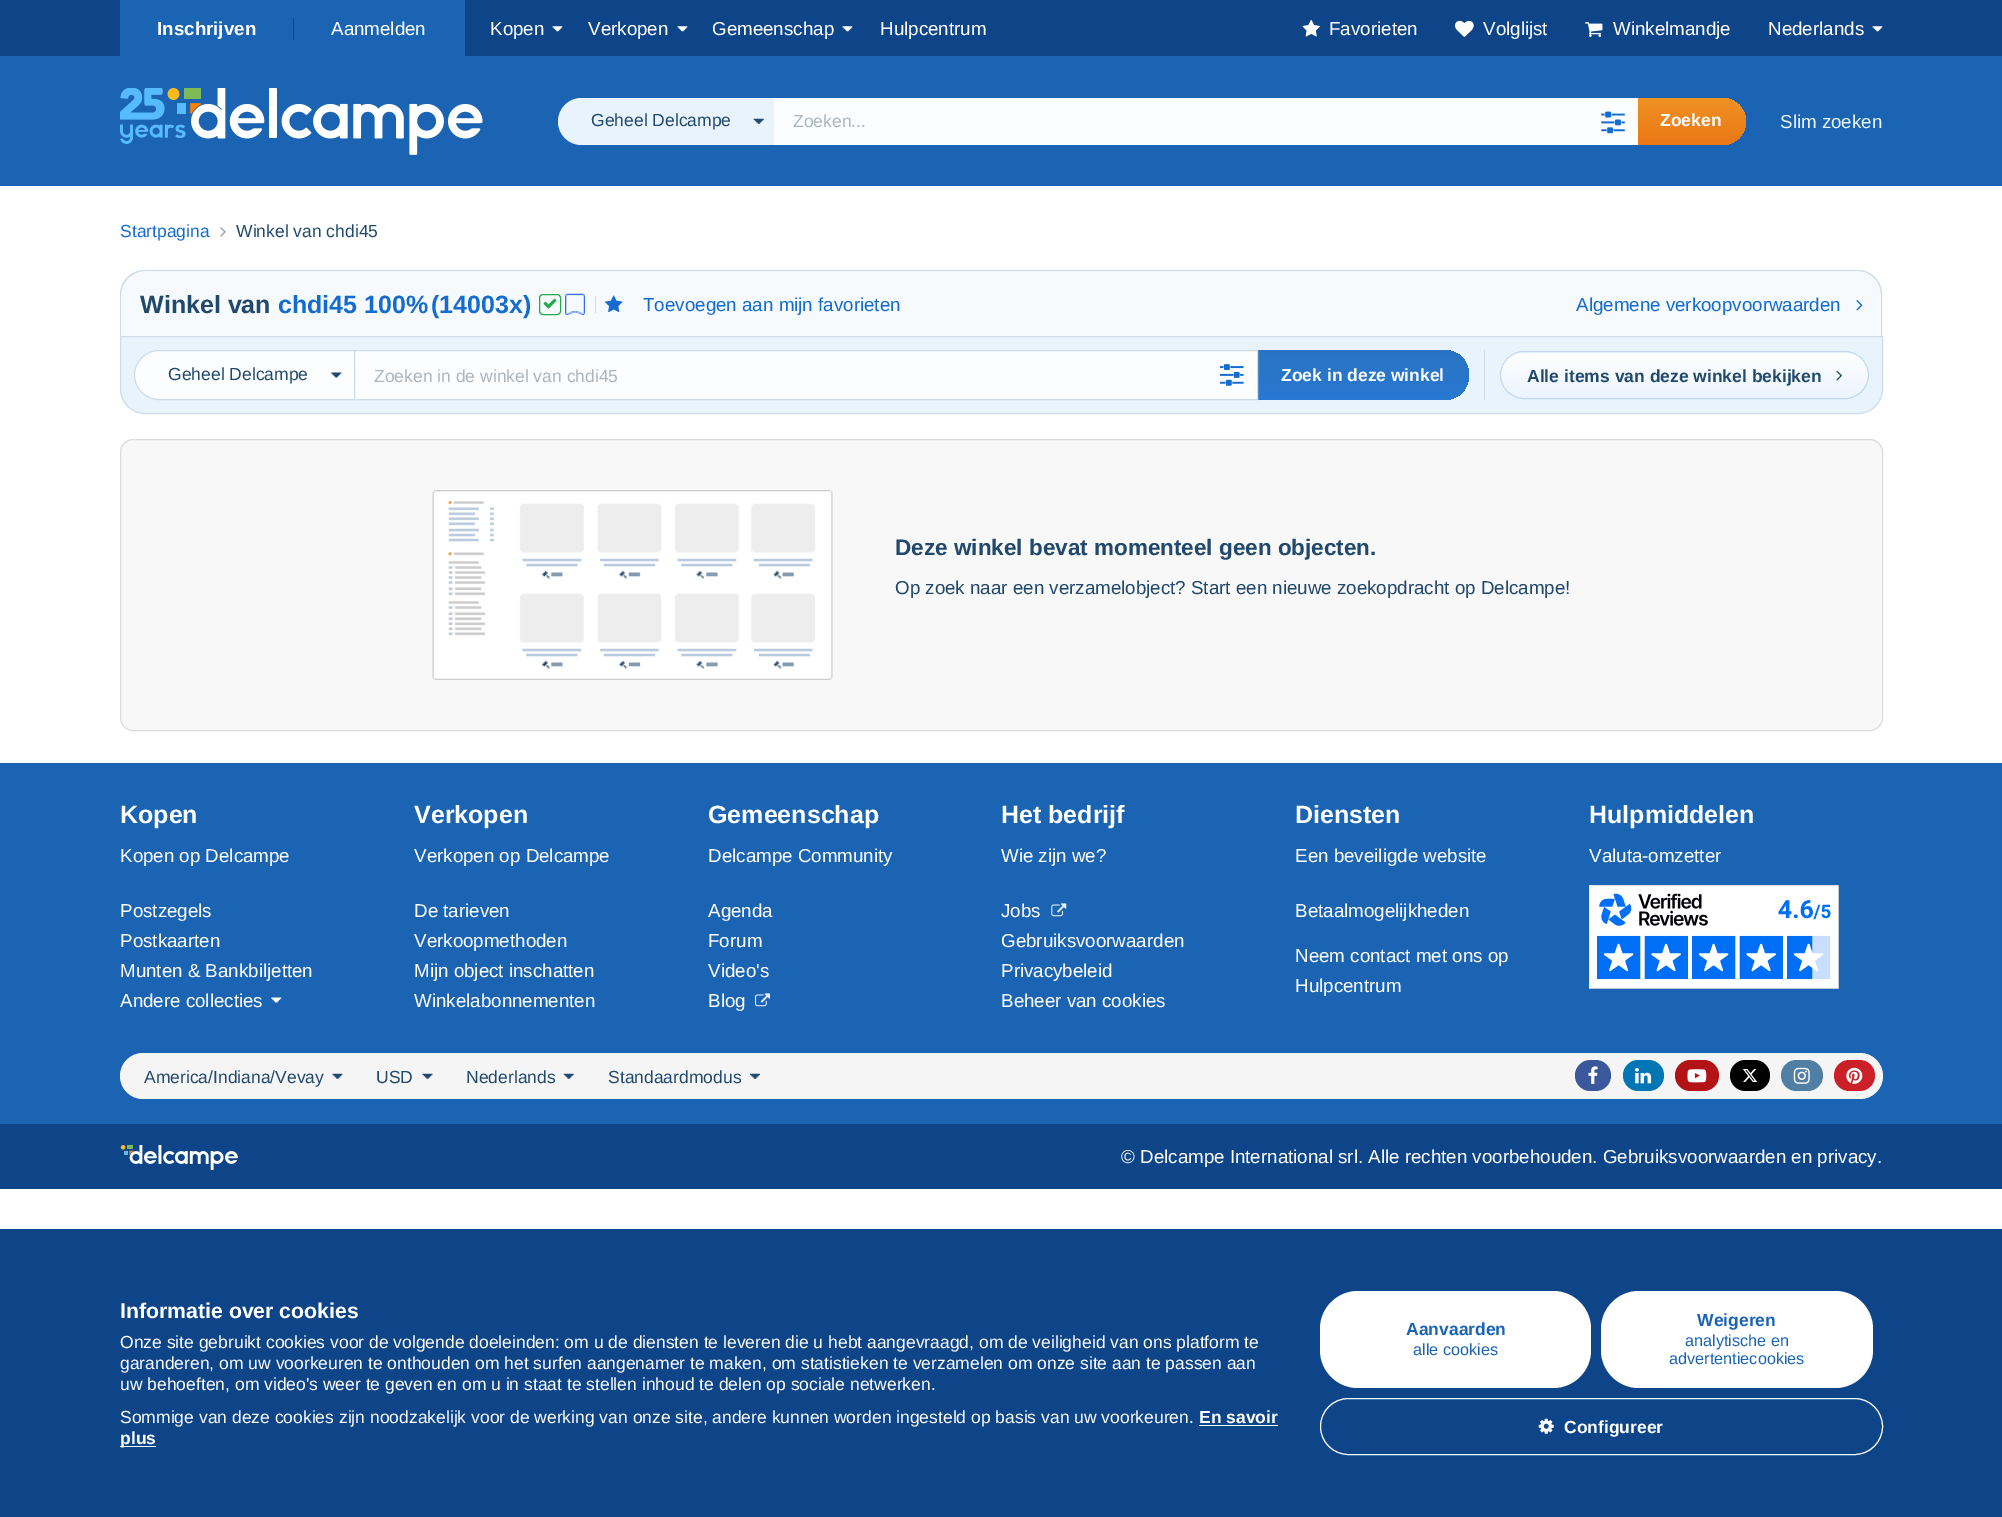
%!PS-Adobe-3.0
%%BoundingBox: 0 0 2002 1517
%%LanguageLevel: 3
%%Pages: 1
%%EndComments
%%BeginProlog
/m { moveto } bind def
/l { lineto } bind def
/c { curveto } bind def
/h { closepath } bind def
/f { fill } bind def
/S { stroke } bind def
/q { gsave } bind def
/Q { grestore } bind def
/fn { [ exch dup neg 0 0 3 -1 roll 0 0 ] selectfont } def
/tx { moveto show } def
/bx { rectfill } def
/rr { 5 dict begin { /r /h /w /y /x } { exch def } forall
  x r add y moveto x w add y 2 copy h add r arct x w add y h add x 1 index r arct
  x y h add x y r arct x y 2 copy exch w add exch r arct closepath end } def
/im { 5 dict begin { /h /w /y /x /name } { exch def } forall
  gsave x y translate w h scale
  w h 8 [w 0 0 h 0 0] name (r) file false 3 colorimage grestore end } def
%%EndProlog
%%BeginSetup
<< /PageSize [2002 1517] >> setpagedevice
%%EndSetup
%%Page: 1 1
0 1517 translate 1 -1 scale
4 setmiterlimit
1 setgray
0 0 2002 1517 bx
0.106 0.392 0.702 setrgbcolor
0 56 2002 130 bx
0.055 0.271 0.533 setrgbcolor
0 0 2002 56 bx
0.106 0.392 0.702 setrgbcolor
120 0 345 56 bx
/LiberationSans-Bold 18.75 fn
1 setgray
(Inschrijven) 157 35 tx
0.02 0.278 0.569 setrgbcolor
293 18 1 22 bx
/LiberationSans-Regular 18.75 fn
1 setgray
(Aanmelden) 331 35 tx
(image0.raw) 552 26 11 6 im
(Kopen) 490 35 tx
(image0.raw) 677 26 11 6 im
(Verkopen) 588 35 tx
(image0.raw) 842 26 11 6 im
(Gemeenschap) 712 35 tx
(Hulpcentrum) 880 35 tx
(image1.raw) 1302 19 18 18 im
(Favorieten) 1329 35 tx
(image2.raw) 1455 20 19 17 im
(Volglijst) 1483 35 tx
(image3.raw) 1585 22 18 15 im
(Winkelmandje) 1613 35 tx
(image0.raw) 1872 26 11 6 im
(Nederlands) 1768 35 tx
(image4.raw) 120 88 363 67 im
0.914 0.953 0.988 setrgbcolor
581.5 98 m 776 98 l 776 145 l 581.5 145 l 568.5 145 558 134.5 558 121.5 c 558 108.5 568.5 98 581.5 98 c h f
(image5.raw) 753 118 11 6 im
/LiberationSans-Regular 17.5 fn
0.129 0.282 0.427 setrgbcolor
(Geheel Delcampe) 591 126 tx
q 1635 98 m 1722.5 98 l 1735.5 98 1746 108.5 1746 121.5 c 1746 134.5 1735.5 145 1722.5 145 c 1635 145 l h clip newpath
<< /ShadingType 2 /ColorSpace /DeviceRGB /Coords [1691 98 1691 145] /Extend [true true] /Function << /FunctionType 3 /Domain [0 1] /Functions [<< /FunctionType 2 /Domain [0 1] /C0 [0.941 0.573 0.141] /C1 [0.918 0.467 0.078] /N 1 >> << /FunctionType 2 /Domain [0 1] /C0 [0.918 0.467 0.078] /C1 [0.918 0.467 0.078] /N 1 >>] /Bounds [0.99] /Encode [0 1 0 1] >> >> shfill Q
0.988 0.992 1 setrgbcolor
774 98 864 47 bx
0.675 0.71 0.737 setrgbcolor
(Zoeken...) 793 127 tx
(image6.raw) 1601 111 24 23 im
/LiberationSans-Bold 17.5 fn
1 setgray
(Zoeken) 1660 126 tx
/LiberationSans-Regular 18.75 fn
0.914 0.953 0.988 setrgbcolor
(Slim zoeken) 1780 128 tx
/LiberationSans-Regular 17.5 fn
0.082 0.424 0.816 setrgbcolor
(Startpagina) 120 237 tx
(image7.raw) 220 227 6 10 im
0.129 0.282 0.427 setrgbcolor
(Winkel van chdi45) 236 237 tx
0.965 0.98 0.988 setrgbcolor
145 270 m 1858 270 l 1872 270 1883 281 1883 295 c 1883 336 l 120 336 l 120 295 l 120 281 131 270 145 270 c h f
0.808 0.863 0.918 setrgbcolor
145 270 m 1858 270 l 1871 270 1882 281 1882 295 c 1882 336 l 120 336 l 120 295 l 120 281 131 270 145 270 c h 145 271 m 1858 271 l 1871 271 1881 282 1881 295 c 1881 336 l 121 336 l 121 295 l 121 282 132 271 145 271 c h eofill
/LiberationSans-Bold 25 fn
0.129 0.282 0.427 setrgbcolor
(Winkel van) 140 313 tx
0.082 0.424 0.816 setrgbcolor
(chdi45 100%) 278 313 tx
(\(14003x\)) 431 313 tx
0.133 0.671 0.306 setrgbcolor
539.5 294.5 21 20 3.5 rr S
(image8.raw) 543 298 14 11 im
(image9.raw) 565 293 20 22 im
0.863 setgray
595 296 1 17 bx
(image10.raw) 605 295 18 18 im
/LiberationSans-Regular 18.75 fn
0.082 0.424 0.816 setrgbcolor
(Toevoegen aan mijn favorieten) 643 311 tx
(Algemene verkoopvoorwaarden) 1576 311 tx
(image11.raw) 1856 300 7 11 im
0.914 0.953 0.988 setrgbcolor
120.5 336.5 m 1882.5 336.5 l 1882.5 389 l 1882.5 402.5 1871.5 413.5 1858 413.5 c 145 413.5 l 131.5 413.5 120.5 402.5 120.5 389 c h q f Q
0.808 0.863 0.918 setrgbcolor
S
1484 350 1 50 bx
0.988 0.992 1 setrgbcolor
159 350 m 355 350 l 355 400 l 159 400 l 145 400 134 389 134 375 c 134 361 145 350 159 350 c h f
(image12.raw) 331 372 11 6 im
0.808 0.863 0.918 setrgbcolor
159 350.5 m 354.5 350.5 l 354.5 399.5 l 159 399.5 l 145.5 399.5 134.5 388.5 134.5 375 c 134.5 361.5 145.5 350.5 159 350.5 c h S
/LiberationSans-Regular 17.5 fn
0.129 0.282 0.427 setrgbcolor
(Geheel Delcampe) 168 380 tx
q 1256 350 m 1444 350 l 1458 350 1469 361 1469 375 c 1469 389 1458 400 1444 400 c 1256 400 l h clip newpath
<< /ShadingType 2 /ColorSpace /DeviceRGB /Coords [1363 350 1363 400] /Extend [true true] /Function << /FunctionType 3 /Domain [0 1] /Functions [<< /FunctionType 2 /Domain [0 1] /C0 [0.161 0.451 0.761] /C1 [0.157 0.471 0.824] /N 1 >> << /FunctionType 2 /Domain [0 1] /C0 [0.157 0.471 0.824] /C1 [0.157 0.471 0.824] /N 1 >>] /Bounds [0.99] /Encode [0 1 0 1] >> >> shfill Q
0.988 0.992 1 setrgbcolor
354.5 350.5 m 1257.5 350.5 l 1257.5 399.5 l 354.5 399.5 l h q f Q
0.808 0.863 0.918 setrgbcolor
S
0.675 0.71 0.737 setrgbcolor
(Zoeken in de winkel van chdi45) 374 382 tx
(image13.raw) 1220 364 24 22 im
/LiberationSans-Bold 17.5 fn
1 setgray
(Zoek in deze winkel) 1281 381 tx
q
1500 351 369 48 24 rr clip newpath
q 1514 351 m 1855 351 l 1855 353 l 1514 353 l h clip newpath
<< /ShadingType 2 /ColorSpace /DeviceRGB /Coords [1684 307 1684 353] /Extend [true true] /Function << /FunctionType 3 /Domain [0 1] /Functions [<< /FunctionType 2 /Domain [0 1] /C0 [1 1 1] /C1 [0.925 0.961 1] /N 1 >> << /FunctionType 2 /Domain [0 1] /C0 [0.925 0.961 1] /C1 [0.925 0.961 1] /N 1 >>] /Bounds [0.99] /Encode [0 1 0 1] >> >> shfill Q
q 1500 353 m 1869 353 l 1869 398 l 1500 398 l h clip newpath
<< /ShadingType 2 /ColorSpace /DeviceRGB /Coords [1684 353 1684 398] /Extend [true true] /Function << /FunctionType 3 /Domain [0 1] /Functions [<< /FunctionType 2 /Domain [0 1] /C0 [1 1 1] /C1 [0.925 0.961 1] /N 1 >> << /FunctionType 2 /Domain [0 1] /C0 [0.925 0.961 1] /C1 [0.925 0.961 1] /N 1 >>] /Bounds [0.99] /Encode [0 1 0 1] >> >> shfill Q
Q
0.757 0.847 0.957 setrgbcolor
1500.5 351.5 368 47 23.5 rr S
0.129 0.282 0.427 setrgbcolor
(Alle items van deze winkel bekijken) 1527 382 tx
(image14.raw) 1836 370 6 11 im
0.973 setgray
120.5 439.5 1762 291 12.5 rr q f Q
0.863 setgray
S
(image15.raw) 432 490 401 190 im
/LiberationSans-Bold 22.5 fn
0.129 0.282 0.427 setrgbcolor
(Deze winkel bevat momenteel geen objecten.) 895 555 tx
/LiberationSans-Regular 18.75 fn
(Op zoek naar een verzamelobject? Start een nieuwe zoekopdracht op Delcampe!) 895 594 tx
0.106 0.392 0.702 setrgbcolor
0 763 2002 361 bx
/LiberationSans-Bold 25 fn
1 setgray
(Kopen) 120 823 tx
/LiberationSans-Regular 18.75 fn
(Kopen op Delcampe) 120 862 tx
(Postzegels) 120 917 tx
(Postkaarten) 120 947 tx
(Munten & Bankbiljetten) 120 977 tx
(Andere collecties) 120 1007 tx
(image16.raw) 271 997 11 6 im
/LiberationSans-Bold 25 fn
(Verkopen) 414 823 tx
/LiberationSans-Regular 18.75 fn
(Verkopen op Delcampe) 414 862 tx
(De tarieven) 414 917 tx
(Verkoopmethoden) 414 947 tx
(Mijn object inschatten) 414 977 tx
(Winkelabonnementen) 414 1007 tx
/LiberationSans-Bold 25 fn
(Gemeenschap) 708 823 tx
/LiberationSans-Regular 18.75 fn
(Delcampe Community) 708 862 tx
(Agenda) 708 917 tx
(Forum) 708 947 tx
(Video's) 708 977 tx
(Blog) 708 1007 tx
(image17.raw) 755 993 15 14 im
/LiberationSans-Bold 25 fn
(Het bedrijf) 1001 823 tx
/LiberationSans-Regular 18.75 fn
(Wie zijn we?) 1001 862 tx
(Jobs) 1001 917 tx
(image18.raw) 1051 903 16 14 im
(Gebruiksvoorwaarden) 1001 947 tx
(Privacybeleid) 1001 977 tx
(Beheer van cookies) 1001 1007 tx
/LiberationSans-Bold 25 fn
(Diensten) 1295 823 tx
/LiberationSans-Regular 18.75 fn
(Een beveiligde website) 1295 862 tx
(Betaalmogelijkheden) 1295 917 tx
(Neem contact met ons op) 1295 962 tx
(Hulpcentrum) 1295 992 tx
/LiberationSans-Bold 25 fn
(Hulpmiddelen) 1589 823 tx
/LiberationSans-Regular 18.75 fn
(Valuta-omzetter) 1589 862 tx
(image19.raw) 1589 885 250 104 im
0.961 setgray
120 1053 1763 46 23 rr f
/LiberationSans-Regular 17.5 fn
0.129 0.282 0.427 setrgbcolor
(America/Indiana/Vevay) 144 1083 tx
(image20.raw) 332 1073 11 6 im
(USD) 376 1083 tx
(image20.raw) 422 1073 11 6 im
(Nederlands) 466 1083 tx
(image21.raw) 563 1073 11 6 im
(Standaardmodus) 608 1083 tx
(image22.raw) 750 1073 10 6 im
0.227 0.345 0.608 setrgbcolor
1575 1060 36 31 15.5 rr f
(image23.raw) 1588 1066 10 18 im
0 0.467 0.706 setrgbcolor
1623 1060 41 31 15.5 rr f
(image24.raw) 1635 1068 17 16 im
0.702 0.071 0.09 setrgbcolor
1675 1060 44 31 15.5 rr f
(image25.raw) 1687 1069 20 14 im
0 setgray
1730 1060 40 31 15.5 rr f
(image26.raw) 1743 1069 15 13 im
0.318 0.498 0.639 setrgbcolor
1781 1060 42 31 15.5 rr f
(image27.raw) 1793 1067 17 17 im
0.796 0.125 0.153 setrgbcolor
1834 1060 41 31 15.5 rr f
(image28.raw) 1846 1067 17 17 im
0.055 0.271 0.533 setrgbcolor
0 1124 2002 65 bx
(image29.raw) 120 1145 118 25 im
/LiberationSans-Regular 18.75 fn
1 setgray
(© Delcampe International srl. Alle rechten voorbehouden. Gebruiksvoorwaarden en privacy.) 1121 1163 tx
0.055 0.271 0.533 setrgbcolor
0 1229 2002 288 bx
/LiberationSans-Bold 21.25 fn
1 setgray
(Informatie over cookies) 120 1318 tx
/LiberationSans-Regular 17.5 fn
(Onze site gebruikt cookies voor de volgende doeleinden: om u de diensten te leveren die u hebt aangevraagd, om de veiligheid van ons platform te) 120 1348 tx
(garanderen, om uw voorkeuren te onthouden om het surfen aangenamer te maken, om statistieken te verzamelen om onze site aan te passen aan) 120 1369 tx
(uw behoeften, om video's weer te geven en om u in staat te stellen inhoud te delen op sociale netwerken.) 120 1390 tx
(Sommige van deze cookies zijn noodzakelijk voor de werking van onze site, andere kunnen worden ingesteld op basis van uw voorkeuren.) 120 1423 tx
/LiberationSans-Bold 17.5 fn
(En savoir) 1199 1423 tx
1199 1425 79 1 bx
120 1446 36 1 bx
(plus) 120 1444 tx
1320 1291 271 97 38 rr f
0.106 0.392 0.702 setrgbcolor
(Aanvaarden) 1406 1335 tx
/LiberationSans-Regular 16.25 fn
(alle cookies) 1413 1355 tx
1 setgray
1601 1291 272 97 38 rr f
/LiberationSans-Bold 17.5 fn
0.106 0.392 0.702 setrgbcolor
(Weigeren) 1697 1326 tx
/LiberationSans-Regular 16.25 fn
(analytische en) 1685 1346 tx
(advertentiecookies) 1669 1364 tx
1 setgray
1320.5 1398.5 562 56 28 rr S
(image30.raw) 1538 1418 16 16 im
/LiberationSans-Bold 17.5 fn
(Configureer) 1564 1433 tx
showpage
%%EOF
